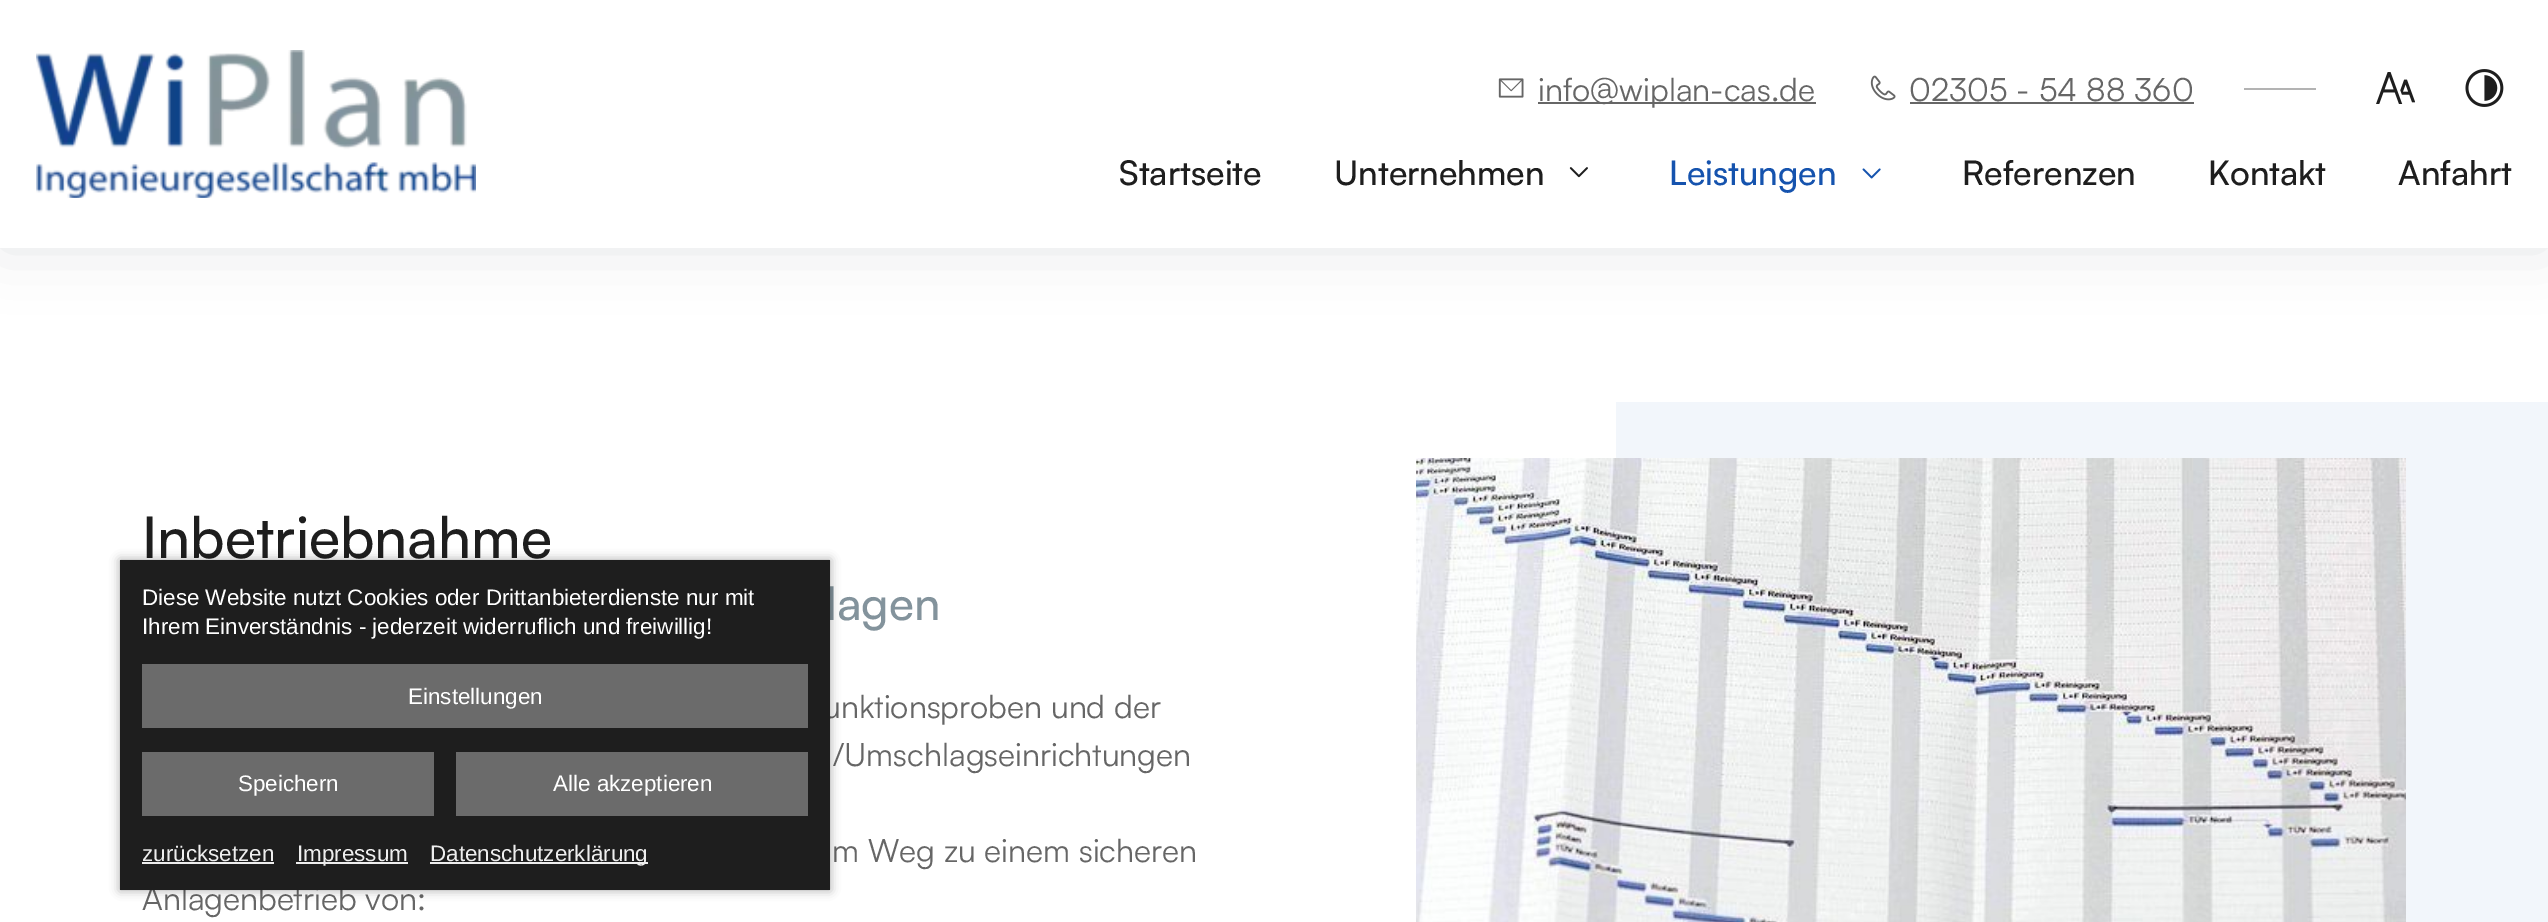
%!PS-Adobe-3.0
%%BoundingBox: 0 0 2548 922
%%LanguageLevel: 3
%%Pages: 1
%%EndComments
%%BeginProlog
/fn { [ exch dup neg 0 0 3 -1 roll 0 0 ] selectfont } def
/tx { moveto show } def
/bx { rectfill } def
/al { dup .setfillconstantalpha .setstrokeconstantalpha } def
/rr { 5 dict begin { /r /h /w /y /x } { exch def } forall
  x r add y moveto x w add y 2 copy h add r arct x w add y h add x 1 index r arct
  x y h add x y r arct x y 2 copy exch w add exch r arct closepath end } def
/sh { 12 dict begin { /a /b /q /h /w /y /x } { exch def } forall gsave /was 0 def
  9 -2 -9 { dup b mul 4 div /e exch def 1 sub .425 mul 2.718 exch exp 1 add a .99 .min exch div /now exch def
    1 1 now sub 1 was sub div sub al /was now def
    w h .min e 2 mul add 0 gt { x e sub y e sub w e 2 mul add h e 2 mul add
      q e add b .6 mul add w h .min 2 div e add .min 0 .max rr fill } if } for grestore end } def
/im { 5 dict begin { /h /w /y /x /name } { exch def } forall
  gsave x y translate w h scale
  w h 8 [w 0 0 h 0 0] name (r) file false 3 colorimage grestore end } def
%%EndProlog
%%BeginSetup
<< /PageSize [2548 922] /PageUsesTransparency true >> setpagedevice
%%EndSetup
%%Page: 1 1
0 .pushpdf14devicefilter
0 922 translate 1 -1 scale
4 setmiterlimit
1 setgray
0 0 2548 922 bx
0.643 0.675 0.694 setrgbcolor
0 0 2548 248 0 30 0.3 sh
1 setgray
0 0 2548 248 bx
(image0.raw) 36 50 440 148 im
(image1.raw) 1498 78 26 20 im
0.4 setgray
1538 102 278 2 bx
/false-Regular 32 fn
(info@wiplan-cas.de) 1538 101 tx
(image2.raw) 1870 75 26 26 im
(02305 - 54 88 360) 1909 101 tx
1910 102 284 2 bx
0.702 setgray
2244 88 72 2 bx
(image3.raw) 2376 72 39 32 im
(image4.raw) 2465 69 39 38 im
/Satoshi-Medium 34 fn
0.118 setgray
(Startseite) 1119 185 tx
(Unternehmen) 1334 185 tx
(image5.raw) 1569 167 19 11 im
0.082 0.325 0.682 setrgbcolor
(Leistungen) 1669 185 tx
(image6.raw) 1862 168 19 11 im
0.118 setgray
(Referenzen) 1962 185 tx
(Kontakt) 2208 185 tx
(Anfahrt) 2398 185 tx
/Satoshi-Medium 57.5 fn
(Inbetriebnahme) 142 558 tx
/Satoshi-Medium 46 fn
0.514 0.576 0.612 setrgbcolor
(lagen) 826 620 tx
/false-Regular 32 fn
0.4 setgray
(unktionsproben und der) 823 718 tx
(/Umschlagseinrichtungen) 833 766 tx
(m Weg zu einem sicheren) 832 862 tx
(Anlagenbetrieb von:) 142 910 tx
0.949 0.965 0.984 setrgbcolor
1616 402 932 520 bx
(image7.raw) 1416 458 990 464 im
0 setgray
120 560 710 330 0 5 0.35 sh
0.118 setgray
120 560 710 330 bx
/LiberationSans-Regular 22.4 fn
1 setgray
(Diese Website nutzt Cookies oder Drittanbieterdienste nur mit) 142 605 tx
(Ihrem Einverständnis - jederzeit widerruflich und freiwillig!) 142 634 tx
0.42 setgray
142 664 666 64 bx
1 setgray
(Einstellungen) 408 704 tx
0.42 setgray
142 752 292 64 bx
1 setgray
(Speichern) 238 791 tx
0.42 setgray
456 752 352 64 bx
1 setgray
(Alle akzeptieren) 553 791 tx
0.933 setgray
(zurücksetzen) 142 861 tx
142 862 132 2 bx
296 862 112 2 bx
(Impressum) 297 861 tx
430 862 218 2 bx
(Datenschutzerklärung) 430 861 tx
.poppdf14devicefilter showpage
%%EOF
